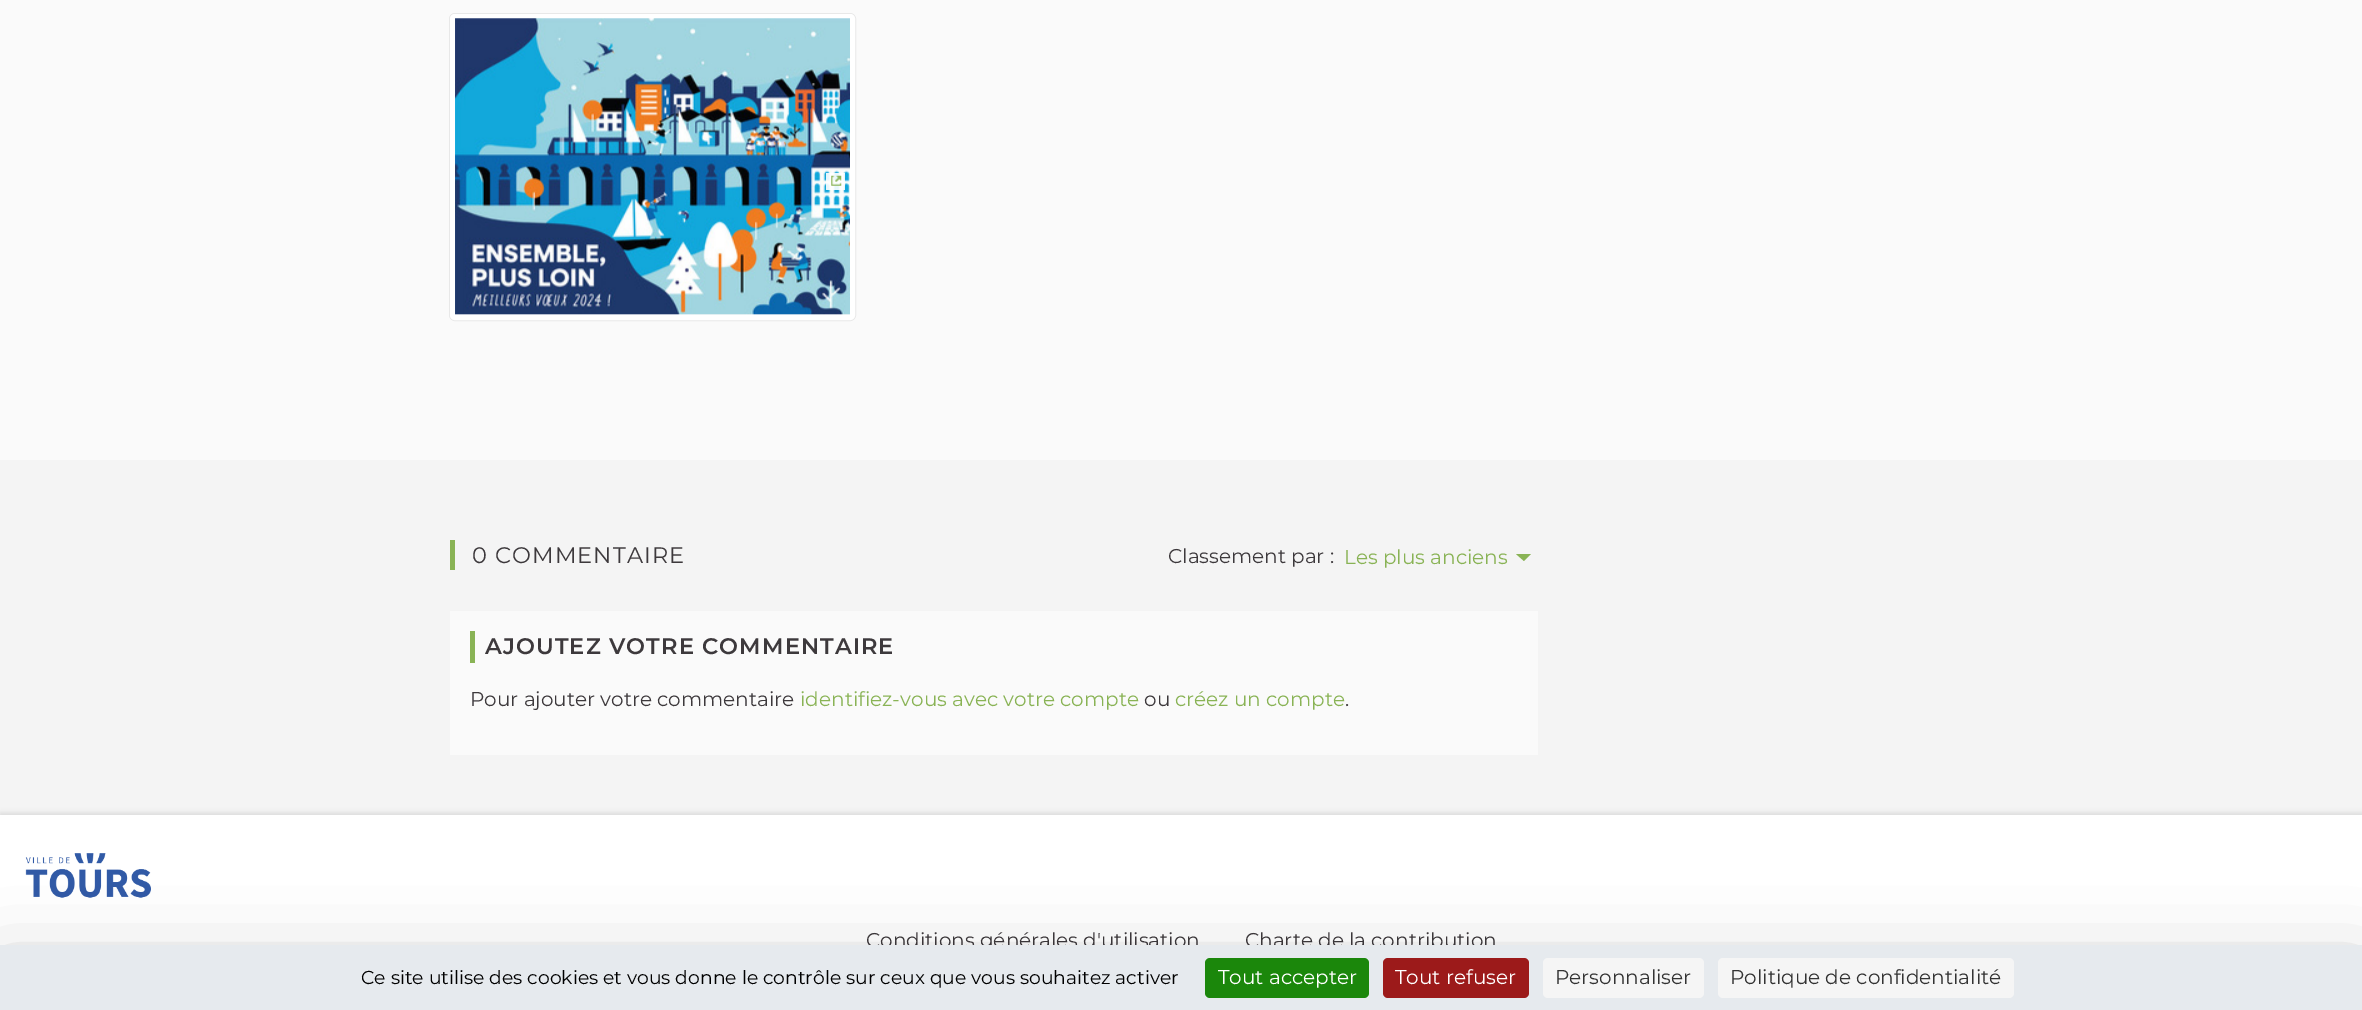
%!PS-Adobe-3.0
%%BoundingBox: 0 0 2362 1010
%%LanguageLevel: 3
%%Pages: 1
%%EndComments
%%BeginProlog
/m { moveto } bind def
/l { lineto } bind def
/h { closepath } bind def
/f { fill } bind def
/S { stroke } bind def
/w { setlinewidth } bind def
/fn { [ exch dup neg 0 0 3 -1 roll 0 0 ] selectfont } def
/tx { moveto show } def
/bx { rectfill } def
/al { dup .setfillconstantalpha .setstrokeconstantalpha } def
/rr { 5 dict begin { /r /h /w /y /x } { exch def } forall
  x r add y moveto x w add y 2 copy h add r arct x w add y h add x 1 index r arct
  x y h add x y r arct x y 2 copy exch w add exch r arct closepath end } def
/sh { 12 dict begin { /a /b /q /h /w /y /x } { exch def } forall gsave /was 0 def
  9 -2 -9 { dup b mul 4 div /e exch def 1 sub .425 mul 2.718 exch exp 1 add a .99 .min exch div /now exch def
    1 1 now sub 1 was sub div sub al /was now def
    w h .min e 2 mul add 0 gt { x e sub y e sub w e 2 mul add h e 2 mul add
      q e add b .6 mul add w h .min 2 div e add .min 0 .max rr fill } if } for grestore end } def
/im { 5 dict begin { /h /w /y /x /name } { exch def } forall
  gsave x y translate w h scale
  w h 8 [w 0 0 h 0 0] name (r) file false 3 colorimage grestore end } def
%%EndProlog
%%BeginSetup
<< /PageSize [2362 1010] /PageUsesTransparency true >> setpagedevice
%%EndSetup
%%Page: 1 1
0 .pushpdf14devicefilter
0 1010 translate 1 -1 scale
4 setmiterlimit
0.98 setgray
0 0 2362 1010 bx
0.91 setgray
449.5 13.5 406 307 5.5 rr S
1 setgray
5 w
452.5 16.5 400 301 2.5 rr S
(image0.raw) 455 18 395 297 im
0.9 al
826 173 19 17 bx
1 al
(image1.raw) 831 175 11 11 im
0.957 setgray
0 460 2362 355 bx
0.537 0.702 0.333 setrgbcolor
450 540 5 30 bx
/Montserrat-Regular 22.5 fn
0.239 0.224 0.235 setrgbcolor
472 563 m 1.1 0 (0 COMMENTAIRE) ashow
/Montserrat-Regular 20 fn
(Classement par :) 1168 563 tx
0.537 0.702 0.333 setrgbcolor
(Les plus anciens) 1344 564 tx
1516 554 m 1531 554 l 1524 561 l h f
0.98 setgray
450 611 1088 144 bx
0.537 0.702 0.333 setrgbcolor
470 631 5 32 bx
/Montserrat-SemiBold 22.5 fn
0.239 0.224 0.235 setrgbcolor
485 654 m 1.1 0 (AJOUTEZ VOTRE COMMENTAIRE) ashow
/Montserrat-Regular 20 fn
(Pour ajouter votre commentaire) 470 706 tx
0.537 0.702 0.333 setrgbcolor
(identifiez-vous avec votre compte) 800 706 tx
0.239 0.224 0.235 setrgbcolor
(ou) 1144 706 tx
0.537 0.702 0.333 setrgbcolor
(créez un compte) 1175 706 tx
0.239 0.224 0.235 setrgbcolor
(.) 1345 706 tx
0 setgray
0 813 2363 193 0 2.5 0.1 sh
1 setgray
0 815 2362 130 bx
(image2.raw) 25 853 126 45 im
0.239 0.224 0.235 setrgbcolor
(Conditions générales d'utilisation) 866 947 tx
(Charte de la contribution) 1245 947 tx
0 setgray
0 970 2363 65 0 37.5 0.25 sh
0.902 0.918 0.933 setrgbcolor
0 945 2362 65 bx
/Montserrat-Regular 18.75 fn
0 setgray
(Ce site utilise des cookies et vous donne le contrôle sur ceux que vous souhaitez activer) 361 984 tx
0.106 0.529 0.043 setrgbcolor
1205 958 164 40 5 rr f
/Montserrat-Regular 20 fn
1 setgray
(Tout accepter) 1218 984 tx
0.612 0.102 0.102 setrgbcolor
1383 958 146 40 5 rr f
1 setgray
(Tout refuser) 1395 984 tx
0.961 setgray
1543 958 161 40 5 rr f
0.2 setgray
(Personnaliser) 1555 984 tx
0.961 setgray
1718 958 296 40 5 rr f
0.2 setgray
(Politique de confidentialité) 1730 984 tx
.poppdf14devicefilter showpage
%%EOF
